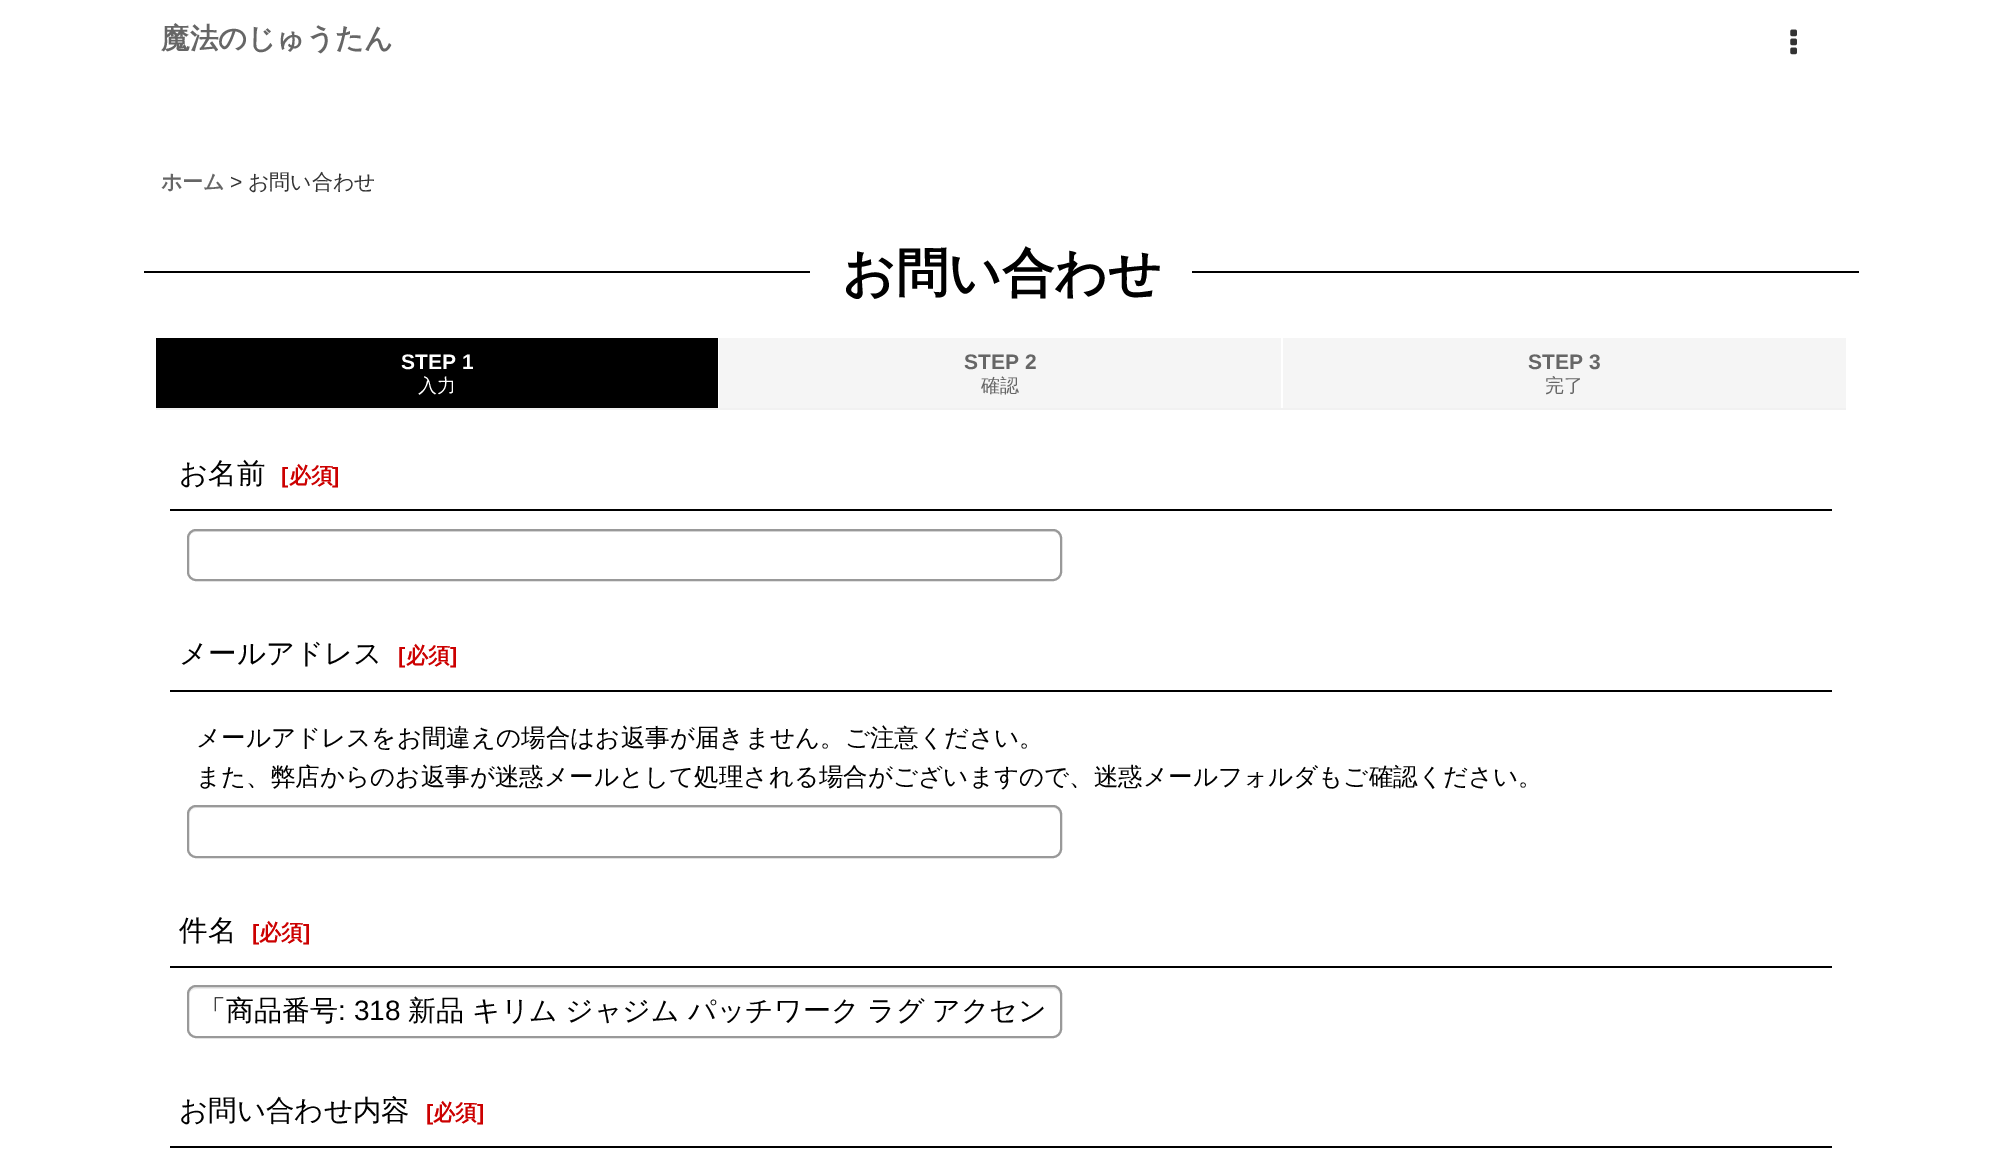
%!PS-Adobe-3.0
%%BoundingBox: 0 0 2001 1160
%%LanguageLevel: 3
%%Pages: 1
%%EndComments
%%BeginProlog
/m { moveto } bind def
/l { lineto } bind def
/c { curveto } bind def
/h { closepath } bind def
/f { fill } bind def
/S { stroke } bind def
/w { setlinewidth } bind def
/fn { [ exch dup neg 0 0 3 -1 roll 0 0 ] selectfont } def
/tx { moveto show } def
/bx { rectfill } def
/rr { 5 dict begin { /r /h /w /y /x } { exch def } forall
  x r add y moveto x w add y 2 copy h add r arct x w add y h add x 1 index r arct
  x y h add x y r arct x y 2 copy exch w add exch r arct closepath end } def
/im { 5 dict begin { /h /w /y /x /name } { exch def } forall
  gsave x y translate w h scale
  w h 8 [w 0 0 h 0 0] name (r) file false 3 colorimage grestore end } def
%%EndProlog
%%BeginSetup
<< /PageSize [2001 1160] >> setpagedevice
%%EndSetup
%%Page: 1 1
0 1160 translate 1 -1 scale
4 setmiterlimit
1 setgray
0 0 2001 1160 bx
/WenQuanYiZenHei-Bold 28.5 fn
0.4 setgray
(魔法のじゅうたん) 161 48 tx
(image0.raw) 1790 29 7 26 im
/WenQuanYiZenHei-Bold 21 fn
(ホーム) 161 189 tx
/LiberationSans-Regular 21 fn
0.2 setgray
(>) 230 189 tx
/WenQuanYiZenHei-Medium 21 fn
(お問い合わせ) 248 189 tx
0 setgray
144 271 1715 2 bx
1 setgray
810 271 382 2 bx
/WenQuanYiZenHei-Bold 52.5 fn
0 setgray
(お問い合わせ) 842 291 tx
156 338 562 70 bx
0.945 setgray
156 408 1690 2 bx
/LiberationSans-Bold 21 fn
1 setgray
(STEP 1) 401 369 tx
/WenQuanYiZenHei-Medium 19 fn
(入力) 418 392 tx
0.961 setgray
719 338 562 70 bx
/LiberationSans-Bold 21 fn
0.4 setgray
(STEP 2) 964 369 tx
/WenQuanYiZenHei-Medium 19 fn
(確認) 981 392 tx
0.961 setgray
1283 338 563 70 bx
/LiberationSans-Bold 21 fn
0.4 setgray
(STEP 3) 1528 369 tx
/WenQuanYiZenHei-Medium 19 fn
(完了) 1545 392 tx
0 setgray
170 509 1662 2 bx
/WenQuanYiZenHei-Medium 28.5 fn
(お名前) 179 483 tx
/LiberationSans-Bold 22 fn
0.8 0 0 setrgbcolor
([) 281 483 tx
/WenQuanYiZenHei-Bold 22 fn
(必須) 289 483 tx
/LiberationSans-Bold 22 fn
(]) 332 483 tx
0.925 setgray
196 532 m 1054 532 l 1057 532 1060 535 1060 539 c 1060 576 l 1061 575 1061 573 1061 572 c 1061 537 l 1061 533 1058 530 1054 530 c 196 530 l 192 530 189 533 189 537 c 189 539 l 189 535 192 532 196 532 c h f
0.6 setgray
2 w
188 530 873 50 8 rr S
0 setgray
170 690 1662 2 bx
/WenQuanYiZenHei-Medium 28.5 fn
(メールアドレス) 179 663 tx
/LiberationSans-Bold 22 fn
0.8 0 0 setrgbcolor
([) 398 663 tx
/WenQuanYiZenHei-Bold 22 fn
(必須) 406 663 tx
/LiberationSans-Bold 22 fn
(]) 450 663 tx
/WenQuanYiZenHei-Medium 24.57 fn
0 setgray
(メールアドレスをお間違えの場合はお返事が届きません。ご注意ください。) 196 746 tx
(また、弊店からのお返事が迷惑メールとして処理される場合がございますので、迷惑メールフォルダもご確認ください。) 196 785 tx
0.925 setgray
196 808 m 1054 808 l 1057 808 1060 812 1060 816 c 1060 850 l 1059 854 l 1060 852 1061 851 1061 849 c 1061 814 l 1061 810 1058 807 1054 807 c 196 807 l 192 807 189 810 189 814 c 189 816 l 189 812 192 808 196 808 c h f
0.6 setgray
188 806 873 51 8 rr S
0 setgray
170 966 1662 2 bx
/WenQuanYiZenHei-Medium 28.5 fn
(件名) 179 940 tx
/LiberationSans-Bold 22 fn
0.8 0 0 setrgbcolor
([) 252 940 tx
/WenQuanYiZenHei-Bold 22 fn
(必須) 259 940 tx
/LiberationSans-Bold 22 fn
(]) 303 940 tx
0.925 setgray
196 989 m 1054 989 l 1057 989 1060 992 1060 996 c 1060 1033 l 1061 1032 1061 1030 1061 1029 c 1061 994 l 1061 990 1058 987 1054 987 c 196 987 l 192 987 189 990 189 994 c 189 996 l 189 992 192 989 196 989 c h f
0.6 setgray
188 986 873 51 8 rr S
/WenQuanYiZenHei-Medium 28 fn
0 setgray
(「商品番号) 198 1020 tx
/LiberationSans-Regular 28 fn
(: 318) 338 1020 tx
/WenQuanYiZenHei-Medium 28 fn
(新品) 408 1020 tx
(キリム) 472 1020 tx
(ジャジム) 565 1020 tx
(パッチワーク) 688 1020 tx
(ラグ) 867 1020 tx
(アクセン) 932 1020 tx
170 1146 1662 2 bx
/WenQuanYiZenHei-Medium 28.5 fn
(お問い合わせ内容) 179 1120 tx
/LiberationSans-Bold 22 fn
0.8 0 0 setrgbcolor
([) 426 1120 tx
/WenQuanYiZenHei-Bold 22 fn
(必須) 433 1120 tx
/LiberationSans-Bold 22 fn
(]) 477 1120 tx
showpage
%%EOF
